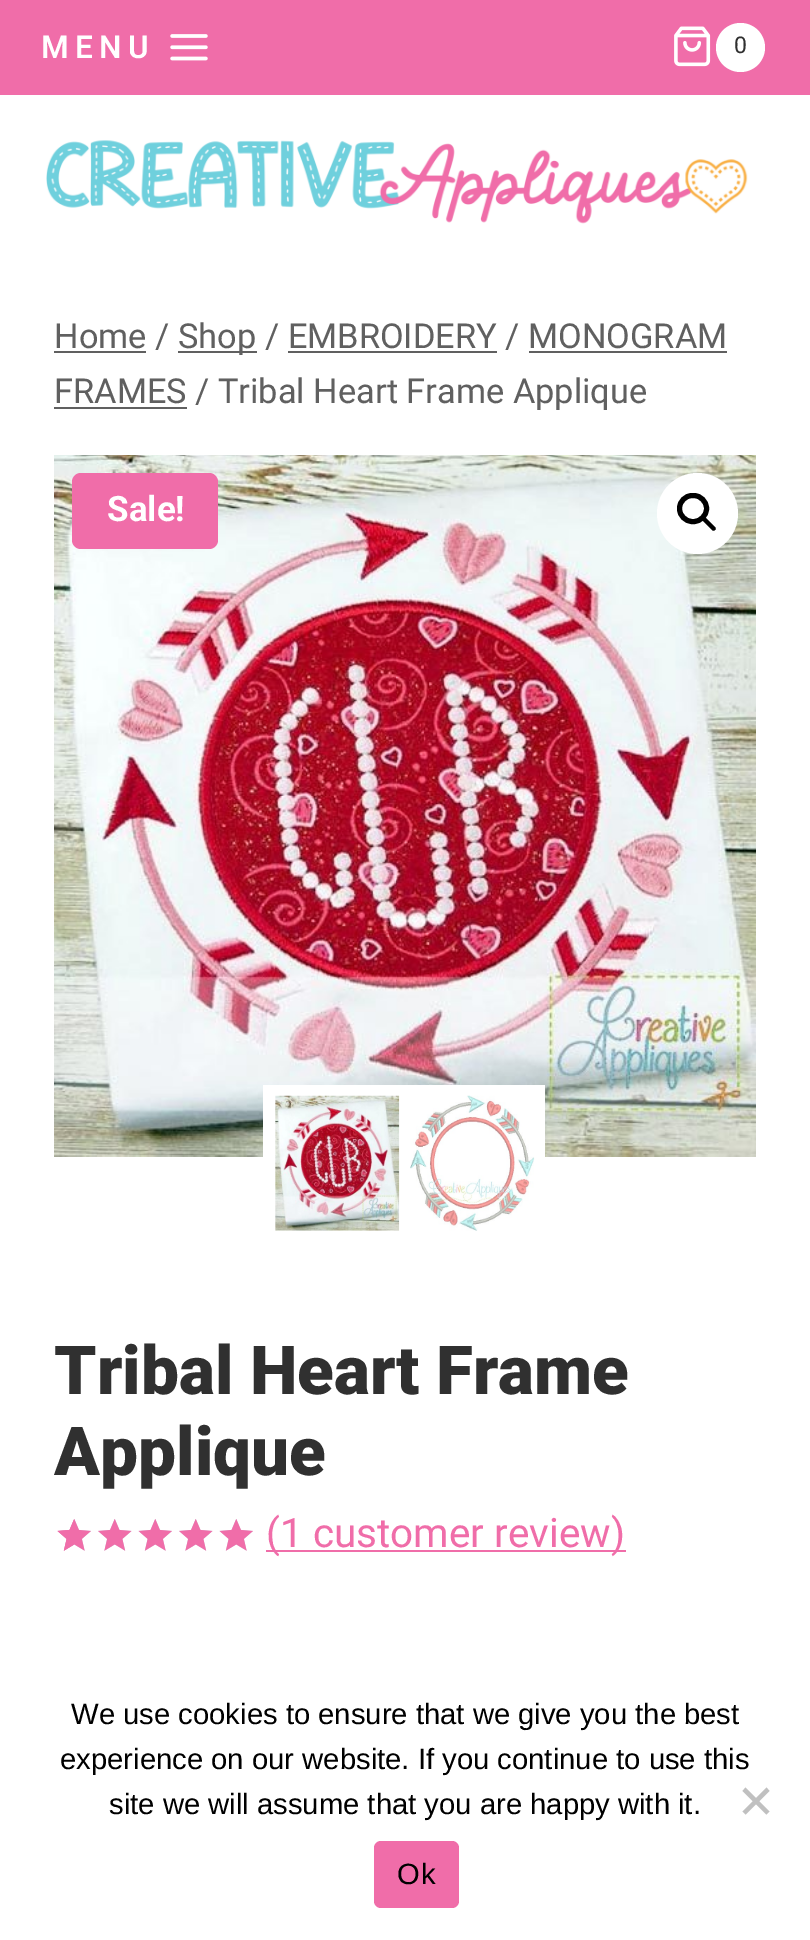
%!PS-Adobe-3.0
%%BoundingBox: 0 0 810 1940
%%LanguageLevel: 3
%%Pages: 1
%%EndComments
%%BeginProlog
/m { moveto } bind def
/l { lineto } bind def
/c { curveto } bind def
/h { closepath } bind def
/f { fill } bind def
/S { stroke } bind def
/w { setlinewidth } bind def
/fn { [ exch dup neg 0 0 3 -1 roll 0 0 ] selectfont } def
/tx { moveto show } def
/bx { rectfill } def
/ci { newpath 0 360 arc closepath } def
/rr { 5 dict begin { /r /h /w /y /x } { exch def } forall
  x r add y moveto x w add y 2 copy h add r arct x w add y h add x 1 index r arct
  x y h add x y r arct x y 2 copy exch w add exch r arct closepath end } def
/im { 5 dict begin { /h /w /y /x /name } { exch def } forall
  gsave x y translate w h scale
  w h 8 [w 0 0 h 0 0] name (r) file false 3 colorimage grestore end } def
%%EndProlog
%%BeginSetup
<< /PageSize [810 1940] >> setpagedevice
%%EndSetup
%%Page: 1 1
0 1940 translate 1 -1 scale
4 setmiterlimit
1 setgray
0 0 810 1940 bx
0.941 0.427 0.663 setrgbcolor
0 0 810 95 bx
/Roboto-SemiBold 31.5 fn
1 setgray
41 58 m 6.5 0 (MENU) ashow
(image0.raw) 170 34 38 27 im
(image1.raw) 674 26 37 41 im
740.5 47.5 24.5 ci f
/Roboto-Regular 23 fn
0.188 setgray
(0) 734 53 tx
(image2.raw) 46 140 702 84 im
/Roboto-Regular 34.4 fn
0.376 setgray
(Home /) 54 348 tx
54 351 92 2 bx
178 351 79 2 bx
(Shop / EMBROIDERY / MONOGRAM) 178 348 tx
288 351 209 2 bx
54 407 133 2 bx
(FRAMES / Tribal Heart Frame Applique) 54 403 tx
529 351 198 2 bx
(image3.raw) 54 455 702 702 im
1 setgray
697.5 513.5 40.5 ci f
0 setgray
5 w
679.5 495.5 27 26 13 rr S
702.5 517.5 m 703.5 516.5 704.5 516.5 705.5 517.5 c 715 527 l 716 528 716 529.5 715 530 c 714 531 713 531 712 530 c 702.5 520.5 l 701.5 520 701.5 518.5 702.5 517.5 c h f
1 setgray
263 1085 282 72 bx
(image4.raw) 275 1095 125 136 im
(image5.raw) 410 1095 125 136 im
0.941 0.427 0.663 setrgbcolor
72 473 146 76 9 rr f
/Roboto-Bold 35 fn
1 setgray
(Sale!) 107 521 tx
/Roboto-Black 67.5 fn
0.188 setgray
(Tribal Heart Frame) 54 1394 tx
(Applique) 54 1475 tx
(image6.raw) 57 1519 196 32 im
(image7.raw) 57 1519 196 32 im
(image8.raw) 57 1519 17 32 im
0.941 0.427 0.663 setrgbcolor
266 1550 360 2 bx
/Roboto-Regular 40.5 fn
(\(1 customer review\)) 266 1547 tx
/LiberationSans-Regular 29.25 fn
0 setgray
(We use cookies to ensure that we give you the best) 71 1724 tx
(experience on our website. If you continue to use this) 60 1769 tx
(site we will assume that you are happy with it.) 109 1814 tx
0.753 setgray
766.5 1787.5 m 769.5 1791 l 745.5 1814.5 l 742.5 1811.5 l h f
742.5 1791 m 745.5 1787.5 l 769.5 1811.5 l 766.5 1814.5 l h f
0.941 0.427 0.663 setrgbcolor
374 1841 85 67 7 rr f
0 setgray
397 1884 m 1 0 (Ok) ashow
showpage
%%EOF
